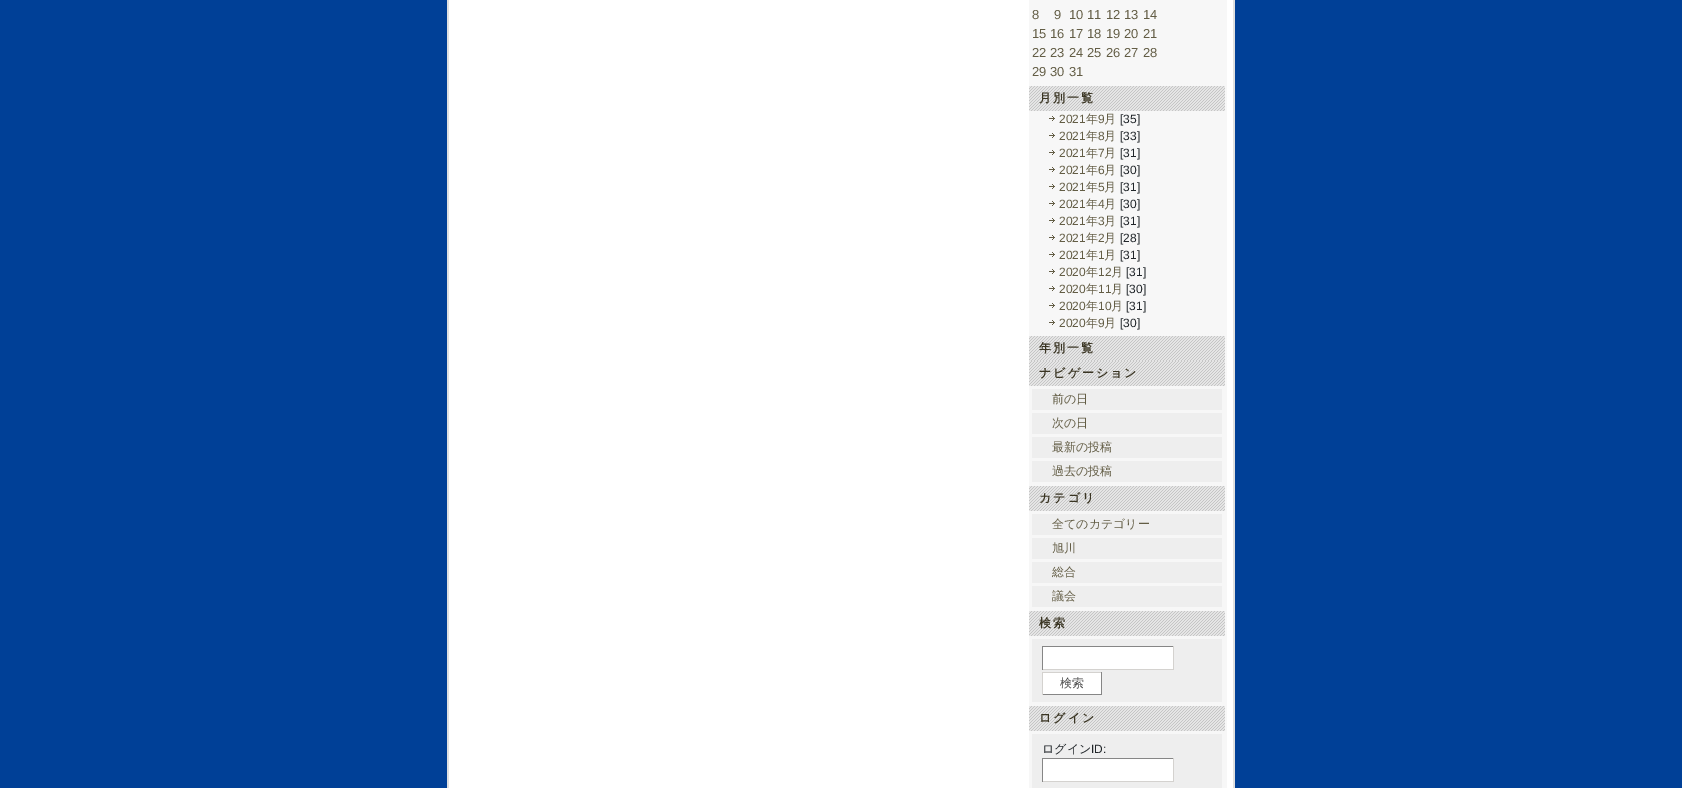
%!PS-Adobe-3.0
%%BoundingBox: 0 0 1682 788
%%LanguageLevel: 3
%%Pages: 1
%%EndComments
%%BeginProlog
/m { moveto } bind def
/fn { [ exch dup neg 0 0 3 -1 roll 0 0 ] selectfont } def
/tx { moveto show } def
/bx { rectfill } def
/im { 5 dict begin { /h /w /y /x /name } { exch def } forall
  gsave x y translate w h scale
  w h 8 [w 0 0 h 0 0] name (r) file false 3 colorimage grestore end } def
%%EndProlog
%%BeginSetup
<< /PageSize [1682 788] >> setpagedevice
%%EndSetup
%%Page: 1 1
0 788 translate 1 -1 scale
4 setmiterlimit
0 0.251 0.592 setrgbcolor
0 0 1682 788 bx
1 setgray
449 0 784 788 bx
0.878 setgray
1233 0 2 788 bx
447 0 2 788 bx
0.969 setgray
1029 0 198 788 bx
/LiberationSans-Regular 13 fn
0.388 0.365 0.271 setrgbcolor
(8) 1032 19 tx
(9) 1054 19 tx
(10) 1069 19 tx
(11) 1087 19 tx
(12) 1106 19 tx
(13) 1124 19 tx
(14) 1143 19 tx
(15) 1032 38 tx
(16) 1050 38 tx
(17) 1069 38 tx
(18) 1087 38 tx
(19) 1106 38 tx
(20) 1124 38 tx
(21) 1143 38 tx
(22) 1032 57 tx
(23) 1050 57 tx
(24) 1069 57 tx
(25) 1087 57 tx
(26) 1106 57 tx
(27) 1124 57 tx
(28) 1143 57 tx
(29) 1032 76 tx
(30) 1050 76 tx
(31) 1069 76 tx
0.898 setgray
1029 86 196 25 bx
(image0.raw) 1029 86 196 25 im
/WenQuanYiZenHei-Bold 12 fn
0.227 0.208 0.137 setrgbcolor
1039 102 m 2 0 (月別一覧) ashow
(image1.raw) 1049 116 6 5 im
/LiberationSans-Regular 12 fn
0.388 0.365 0.271 setrgbcolor
(2021) 1059 123 tx
/WenQuanYiZenHei-Medium 12 fn
(年) 1086 123 tx
/LiberationSans-Regular 12 fn
(9) 1098 123 tx
/WenQuanYiZenHei-Medium 12 fn
(月) 1104 123 tx
/LiberationSans-Regular 12 fn
0.129 0.149 0.165 setrgbcolor
([35]) 1120 123 tx
(image1.raw) 1049 133 6 5 im
0.388 0.365 0.271 setrgbcolor
(2021) 1059 140 tx
/WenQuanYiZenHei-Medium 12 fn
(年) 1086 140 tx
/LiberationSans-Regular 12 fn
(8) 1098 140 tx
/WenQuanYiZenHei-Medium 12 fn
(月) 1104 140 tx
/LiberationSans-Regular 12 fn
0.129 0.149 0.165 setrgbcolor
([33]) 1120 140 tx
(image1.raw) 1049 150 6 5 im
0.388 0.365 0.271 setrgbcolor
(2021) 1059 157 tx
/WenQuanYiZenHei-Medium 12 fn
(年) 1086 157 tx
/LiberationSans-Regular 12 fn
(7) 1098 157 tx
/WenQuanYiZenHei-Medium 12 fn
(月) 1104 157 tx
/LiberationSans-Regular 12 fn
0.129 0.149 0.165 setrgbcolor
([31]) 1120 157 tx
(image1.raw) 1049 167 6 5 im
0.388 0.365 0.271 setrgbcolor
(2021) 1059 174 tx
/WenQuanYiZenHei-Medium 12 fn
(年) 1086 174 tx
/LiberationSans-Regular 12 fn
(6) 1098 174 tx
/WenQuanYiZenHei-Medium 12 fn
(月) 1104 174 tx
/LiberationSans-Regular 12 fn
0.129 0.149 0.165 setrgbcolor
([30]) 1120 174 tx
(image1.raw) 1049 184 6 5 im
0.388 0.365 0.271 setrgbcolor
(2021) 1059 191 tx
/WenQuanYiZenHei-Medium 12 fn
(年) 1086 191 tx
/LiberationSans-Regular 12 fn
(5) 1098 191 tx
/WenQuanYiZenHei-Medium 12 fn
(月) 1104 191 tx
/LiberationSans-Regular 12 fn
0.129 0.149 0.165 setrgbcolor
([31]) 1120 191 tx
(image1.raw) 1049 201 6 5 im
0.388 0.365 0.271 setrgbcolor
(2021) 1059 208 tx
/WenQuanYiZenHei-Medium 12 fn
(年) 1086 208 tx
/LiberationSans-Regular 12 fn
(4) 1098 208 tx
/WenQuanYiZenHei-Medium 12 fn
(月) 1104 208 tx
/LiberationSans-Regular 12 fn
0.129 0.149 0.165 setrgbcolor
([30]) 1120 208 tx
(image1.raw) 1049 218 6 5 im
0.388 0.365 0.271 setrgbcolor
(2021) 1059 225 tx
/WenQuanYiZenHei-Medium 12 fn
(年) 1086 225 tx
/LiberationSans-Regular 12 fn
(3) 1098 225 tx
/WenQuanYiZenHei-Medium 12 fn
(月) 1104 225 tx
/LiberationSans-Regular 12 fn
0.129 0.149 0.165 setrgbcolor
([31]) 1120 225 tx
(image1.raw) 1049 235 6 5 im
0.388 0.365 0.271 setrgbcolor
(2021) 1059 242 tx
/WenQuanYiZenHei-Medium 12 fn
(年) 1086 242 tx
/LiberationSans-Regular 12 fn
(2) 1098 242 tx
/WenQuanYiZenHei-Medium 12 fn
(月) 1104 242 tx
/LiberationSans-Regular 12 fn
0.129 0.149 0.165 setrgbcolor
([28]) 1120 242 tx
(image1.raw) 1049 252 6 5 im
0.388 0.365 0.271 setrgbcolor
(2021) 1059 259 tx
/WenQuanYiZenHei-Medium 12 fn
(年) 1086 259 tx
/LiberationSans-Regular 12 fn
(1) 1098 259 tx
/WenQuanYiZenHei-Medium 12 fn
(月) 1104 259 tx
/LiberationSans-Regular 12 fn
0.129 0.149 0.165 setrgbcolor
([31]) 1120 259 tx
(image1.raw) 1049 269 6 5 im
0.388 0.365 0.271 setrgbcolor
(2020) 1059 276 tx
/WenQuanYiZenHei-Medium 12 fn
(年) 1086 276 tx
/LiberationSans-Regular 12 fn
(12) 1098 276 tx
/WenQuanYiZenHei-Medium 12 fn
(月) 1111 276 tx
/LiberationSans-Regular 12 fn
0.129 0.149 0.165 setrgbcolor
([31]) 1126 276 tx
(image1.raw) 1049 286 6 5 im
0.388 0.365 0.271 setrgbcolor
(2020) 1059 293 tx
/WenQuanYiZenHei-Medium 12 fn
(年) 1086 293 tx
/LiberationSans-Regular 12 fn
(11) 1098 293 tx
/WenQuanYiZenHei-Medium 12 fn
(月) 1111 293 tx
/LiberationSans-Regular 12 fn
0.129 0.149 0.165 setrgbcolor
([30]) 1126 293 tx
(image1.raw) 1049 303 6 5 im
0.388 0.365 0.271 setrgbcolor
(2020) 1059 310 tx
/WenQuanYiZenHei-Medium 12 fn
(年) 1086 310 tx
/LiberationSans-Regular 12 fn
(10) 1098 310 tx
/WenQuanYiZenHei-Medium 12 fn
(月) 1111 310 tx
/LiberationSans-Regular 12 fn
0.129 0.149 0.165 setrgbcolor
([31]) 1126 310 tx
(image1.raw) 1049 320 6 5 im
0.388 0.365 0.271 setrgbcolor
(2020) 1059 327 tx
/WenQuanYiZenHei-Medium 12 fn
(年) 1086 327 tx
/LiberationSans-Regular 12 fn
(9) 1098 327 tx
/WenQuanYiZenHei-Medium 12 fn
(月) 1104 327 tx
/LiberationSans-Regular 12 fn
0.129 0.149 0.165 setrgbcolor
([30]) 1120 327 tx
0.898 setgray
1029 336 196 50 bx
(image0.raw) 1029 336 196 25 im
/WenQuanYiZenHei-Bold 12 fn
0.227 0.208 0.137 setrgbcolor
1039 352 m 2 0 (年別一覧) ashow
(image0.raw) 1029 361 196 25 im
1039 377 m 2 0 (ナビゲーション) ashow
0.933 setgray
1032 389 190 21 bx
/WenQuanYiZenHei-Medium 12 fn
0.388 0.365 0.271 setrgbcolor
(前の日) 1052 403 tx
0.933 setgray
1032 413 190 21 bx
0.388 0.365 0.271 setrgbcolor
(次の日) 1052 427 tx
0.933 setgray
1032 437 190 21 bx
0.388 0.365 0.271 setrgbcolor
(最新の投稿) 1052 451 tx
0.933 setgray
1032 461 190 21 bx
0.388 0.365 0.271 setrgbcolor
(過去の投稿) 1052 475 tx
0.898 setgray
1029 486 196 25 bx
(image0.raw) 1029 486 196 25 im
/WenQuanYiZenHei-Bold 12 fn
0.227 0.208 0.137 setrgbcolor
1039 502 m 2 0 (カテゴリ) ashow
0.933 setgray
1032 514 190 21 bx
/WenQuanYiZenHei-Medium 12 fn
0.388 0.365 0.271 setrgbcolor
(全てのカテゴリー) 1052 528 tx
0.933 setgray
1032 538 190 21 bx
0.388 0.365 0.271 setrgbcolor
(旭川) 1052 552 tx
0.933 setgray
1032 562 190 21 bx
0.388 0.365 0.271 setrgbcolor
(総合) 1052 576 tx
0.933 setgray
1032 586 190 21 bx
0.388 0.365 0.271 setrgbcolor
(議会) 1052 600 tx
0.898 setgray
1029 611 196 25 bx
(image0.raw) 1029 611 196 25 im
/WenQuanYiZenHei-Bold 12 fn
0.227 0.208 0.137 setrgbcolor
1039 627 m 2 0 (検索) ashow
0.933 setgray
1032 639 190 63 bx
1 setgray
1043 647 130 22 bx
0.525 setgray
1042 646 132 1 bx
0.831 0.824 0.812 setrgbcolor
1173 646 1 24 bx
1042 669 132 1 bx
0.525 setgray
1042 646 1 24 bx
1 setgray
1043 673 58 21 bx
0.831 0.824 0.812 setrgbcolor
1042 672 60 1 bx
0.525 setgray
1101 672 1 23 bx
1042 694 60 1 bx
0.831 0.824 0.812 setrgbcolor
1042 672 1 23 bx
/WenQuanYiZenHei-Medium 12 fn
0.286 setgray
(検索) 1060 687 tx
0.898 setgray
1029 706 196 25 bx
(image0.raw) 1029 706 196 25 im
/WenQuanYiZenHei-Bold 12 fn
0.227 0.208 0.137 setrgbcolor
1039 722 m 2 0 (ログイン) ashow
0.933 setgray
1032 734 190 54 bx
/WenQuanYiZenHei-Medium 12 fn
0.129 0.149 0.165 setrgbcolor
(ログイン) 1042 753 tx
/LiberationSans-Regular 12 fn
(ID:) 1091 753 tx
1 setgray
1043 759 130 22 bx
0.525 setgray
1042 758 132 1 bx
0.831 0.824 0.812 setrgbcolor
1173 758 1 24 bx
1042 781 132 1 bx
0.525 setgray
1042 758 1 24 bx
showpage
%%EOF
